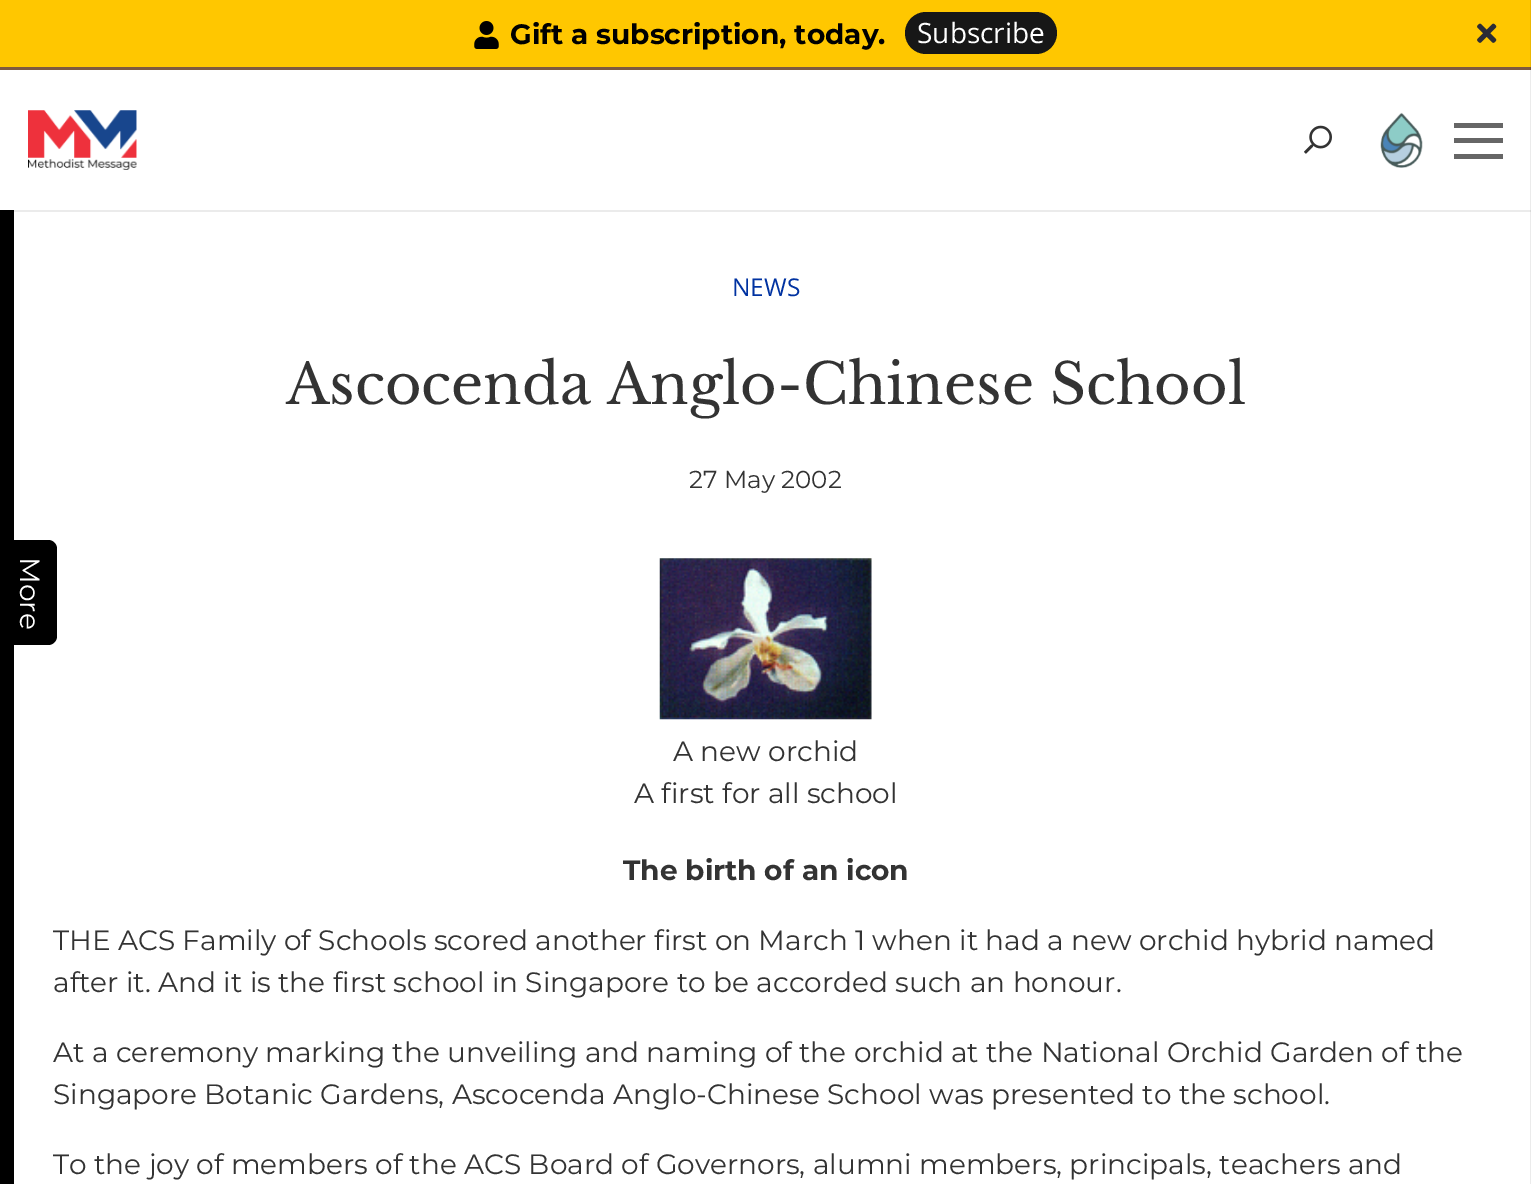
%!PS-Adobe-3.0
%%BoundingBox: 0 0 1531 1184
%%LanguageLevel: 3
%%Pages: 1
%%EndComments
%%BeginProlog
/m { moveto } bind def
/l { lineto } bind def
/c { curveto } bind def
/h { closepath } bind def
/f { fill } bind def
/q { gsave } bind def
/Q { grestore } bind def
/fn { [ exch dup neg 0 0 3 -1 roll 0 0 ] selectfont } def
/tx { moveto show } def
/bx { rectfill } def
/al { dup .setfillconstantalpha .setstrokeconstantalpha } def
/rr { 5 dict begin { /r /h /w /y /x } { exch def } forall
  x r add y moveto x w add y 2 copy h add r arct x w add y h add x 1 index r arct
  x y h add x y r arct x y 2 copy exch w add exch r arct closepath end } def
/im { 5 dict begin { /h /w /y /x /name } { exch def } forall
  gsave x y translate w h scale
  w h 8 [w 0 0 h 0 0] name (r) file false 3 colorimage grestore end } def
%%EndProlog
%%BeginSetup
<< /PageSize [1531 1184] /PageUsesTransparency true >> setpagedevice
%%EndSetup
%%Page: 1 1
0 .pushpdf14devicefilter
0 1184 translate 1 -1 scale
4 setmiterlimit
1 setgray
0 0 1531 1184 bx
0.922 setgray
14 210 1517 2 bx
(image0.raw) 28 110 109 60 im
(image1.raw) 1304 125 28 29 im
(image2.raw) 1380 112 43 56 im
0.4 setgray
1454 138 49 5 bx
1454 123 49 5 bx
1454 154 49 5 bx
1 0.78 0 setrgbcolor
0 0 1531 67 bx
0.494 0.349 0.247 setrgbcolor
0 67 1531 3 bx
0.08 al
0 setgray
1530 0 m 1530 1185 l 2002 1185 l 1531 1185 l 1531 0 l h f
1 al
(image3.raw) 474 21 25 28 im
/Montserrat-Bold 28 fn
(Gift a subscription, today.) 510 44 tx
0.09 setgray
905 12 152 42 21 rr f
/OpenSans-Regular 28 fn
1 setgray
(Subscribe) 917 43 tx
(image4.raw) 1477 23 20 20 im
0 setgray
57 549 m 57 636 l 57 641 53 645 48 645 c 13 645 l 13 540 l 48 540 l 53 540 57 544 57 549 c h f
0 210 14 974 bx
/Montserrat-Regular 28 fn
1 setgray
q 20 557 translate 90 rotate 0 0 m (More) show Q
/OpenSans-Regular 24.5 fn
0 0.196 0.631 setrgbcolor
(NEWS) 732 296 tx
/LibreBaskerville-Regular 56 fn
0.2 setgray
(Ascocenda Anglo-Chinese School) 286 404 tx
/Montserrat-Regular 24.5 fn
(27 May 2002) 689 488 tx
(image5.raw) 659 558 213 162 im
/Montserrat-Regular 28 fn
(A new orchid) 673 761 tx
(A first for all school) 634 803 tx
/Montserrat-Bold 28 fn
(The birth of an icon) 623 880 tx
/Montserrat-Regular 28 fn
(THE ACS Family of Schools scored another first on March 1 when it had a new orchid hybrid named) 53 950 tx
(after it. And it is the first school in Singapore to be accorded such an honour.) 53 992 tx
(At a ceremony marking the unveiling and naming of the orchid at the National Orchid Garden of the) 53 1062 tx
(Singapore Botanic Gardens, Ascocenda Anglo-Chinese School was presented to the school.) 53 1104 tx
(To the joy of members of the ACS Board of Governors, alumni members, principals, teachers and) 53 1174 tx
.poppdf14devicefilter showpage
%%EOF
